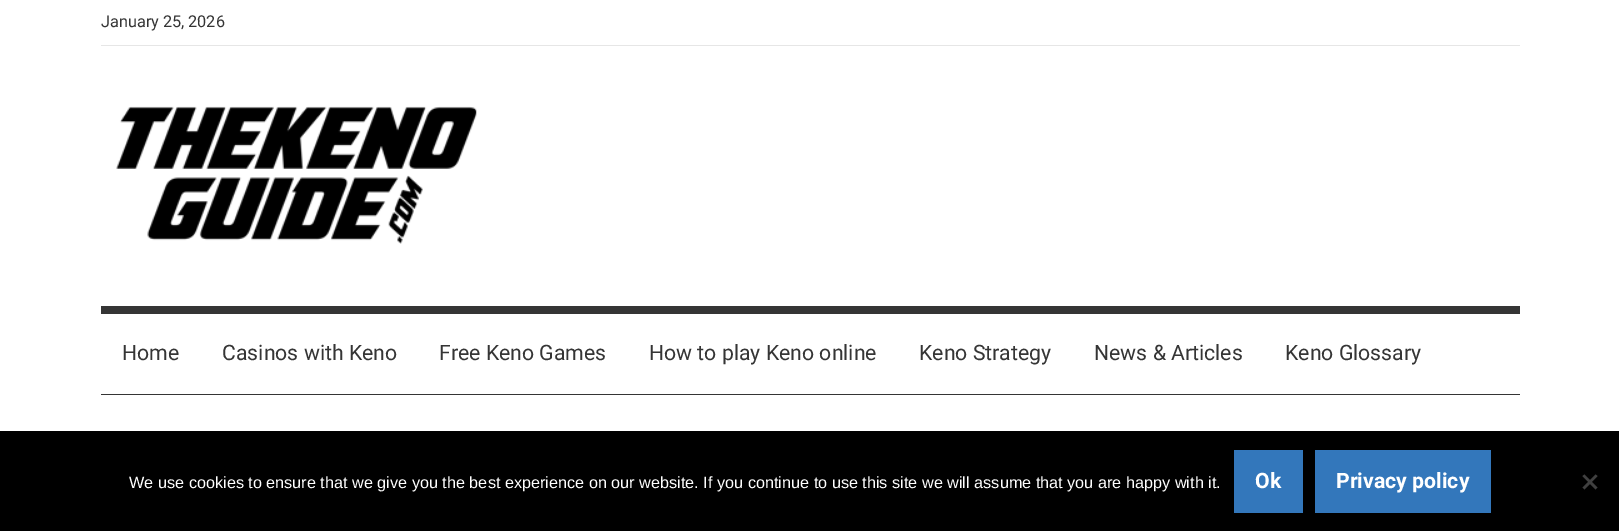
%!PS-Adobe-3.0
%%BoundingBox: 0 0 1619 531
%%LanguageLevel: 3
%%Pages: 1
%%EndComments
%%BeginProlog
/m { moveto } bind def
/l { lineto } bind def
/h { closepath } bind def
/f { fill } bind def
/fn { [ exch dup neg 0 0 3 -1 roll 0 0 ] selectfont } def
/tx { moveto show } def
/bx { rectfill } def
/im { 5 dict begin { /h /w /y /x /name } { exch def } forall
  gsave x y translate w h scale
  w h 8 [w 0 0 h 0 0] name (r) file false 3 colorimage grestore end } def
%%EndProlog
%%BeginSetup
<< /PageSize [1619 531] >> setpagedevice
%%EndSetup
%%Page: 1 1
0 531 translate 1 -1 scale
4 setmiterlimit
1 setgray
0 0 1619 531 bx
0.902 setgray
101 45 1419 1 bx
/Roboto-Regular 16.25 fn
0.208 setgray
(January 25, 2026) 101 27 tx
(image0.raw) 116 106 361 138 im
101 306 1419 8 bx
101 394 1419 1 bx
/Roboto-Regular 21.25 fn
(Home) 122 360 tx
(Casinos with Keno) 222 360 tx
(Free Keno Games) 439 360 tx
(How to play Keno online) 649 360 tx
(Keno Strategy) 919 360 tx
(News & Articles) 1094 360 tx
(Keno Glossary) 1285 360 tx
0 setgray
0 431 1619 100 bx
/LiberationSans-Regular 16.25 fn
1 setgray
(We use cookies to ensure that we give you the best experience on our website. If you continue to use this site we will assume that you are happy with it.) 129 488 tx
0.2 0.467 0.733 setrgbcolor
1234 450 69 63 bx
/Roboto-Bold 21.25 fn
1 setgray
(Ok) 1255 488 tx
0.2 0.467 0.733 setrgbcolor
1315 450 176 63 bx
1 setgray
(Privacy policy) 1336 488 tx
0.251 setgray
1595.5 474.5 m 1597.5 476 l 1584.5 489.5 l 1582.5 487.5 l h f
1582.5 476 m 1584.5 474.5 l 1597.5 487.5 l 1595.5 489.5 l h f
showpage
%%EOF
